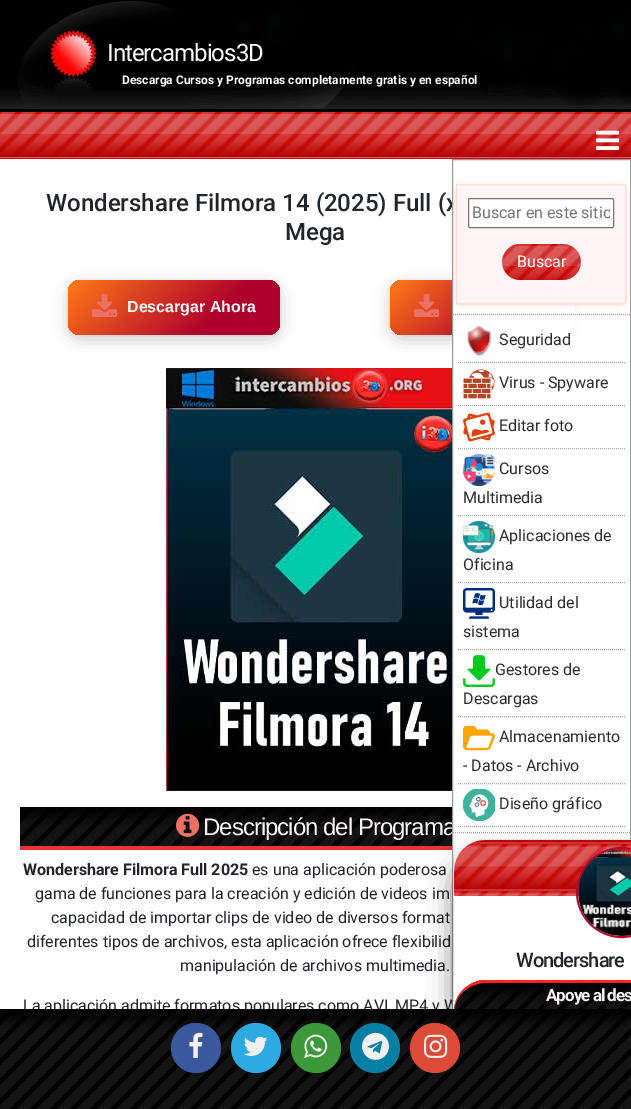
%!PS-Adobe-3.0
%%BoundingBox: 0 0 631 1109
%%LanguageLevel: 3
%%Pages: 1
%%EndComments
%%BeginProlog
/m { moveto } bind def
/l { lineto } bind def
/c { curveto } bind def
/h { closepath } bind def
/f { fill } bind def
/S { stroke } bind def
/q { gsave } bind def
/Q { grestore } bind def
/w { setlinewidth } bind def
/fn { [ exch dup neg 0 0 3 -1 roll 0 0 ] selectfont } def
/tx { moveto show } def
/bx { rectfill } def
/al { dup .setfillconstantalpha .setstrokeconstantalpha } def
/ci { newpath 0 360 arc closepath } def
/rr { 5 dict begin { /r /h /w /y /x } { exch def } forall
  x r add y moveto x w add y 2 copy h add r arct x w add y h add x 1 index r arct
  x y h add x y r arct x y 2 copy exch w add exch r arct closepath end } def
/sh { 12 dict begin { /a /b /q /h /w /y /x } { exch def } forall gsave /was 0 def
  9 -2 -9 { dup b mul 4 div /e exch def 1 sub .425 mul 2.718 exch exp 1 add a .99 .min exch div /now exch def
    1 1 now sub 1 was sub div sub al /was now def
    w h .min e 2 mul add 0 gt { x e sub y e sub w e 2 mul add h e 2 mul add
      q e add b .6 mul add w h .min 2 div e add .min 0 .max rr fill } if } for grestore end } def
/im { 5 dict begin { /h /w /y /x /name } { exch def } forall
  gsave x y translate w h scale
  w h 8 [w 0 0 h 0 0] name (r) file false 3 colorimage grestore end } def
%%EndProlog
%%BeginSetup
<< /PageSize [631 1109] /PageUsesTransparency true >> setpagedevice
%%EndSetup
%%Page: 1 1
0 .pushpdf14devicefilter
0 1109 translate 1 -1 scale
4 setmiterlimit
1 setgray
0 0 631 1109 bx
0 setgray
0 0 631 112 bx
(image0.raw) 0 1 631 108 im
/Roboto-Regular 24 fn
1 setgray
107 61 m -1 0 (Intercambios3D) ashow
/Roboto-Bold 12 fn
(Descarga Cursos y Programas completamente gratis y en español) 122 84 tx
(image1.raw) 0 112 631 47 im
(image2.raw) 596 130 24 20 im
/Roboto-Medium 24 fn
0.129 0.145 0.161 setrgbcolor
(Wondershare Filmora 14 \(2025\) Full \(x) 46 211 tx
(Mega) 285 240 tx
0 setgray
68 284 212 55 12 7.5 0.2 sh
q 68 280 212 55 12 rr clip newpath
<< /ShadingType 2 /ColorSpace /DeviceRGB /Coords [107 241 241 374] /Extend [true true] /Function << /FunctionType 3 /Domain [0 1] /Functions [<< /FunctionType 2 /Domain [0 1] /C0 [1 0.478 0.094] /C1 [0.686 0 0.176] /N 1 >> << /FunctionType 2 /Domain [0 1] /C0 [0.686 0 0.176] /C1 [0.686 0 0.176] /N 1 >>] /Bounds [0.7] /Encode [0 1 0 1] >> >> shfill Q
(image3.raw) 92 293 26 24 im
/LiberationSans-Bold 16 fn
1 setgray
(Descargar Ahora) 127 312 tx
0 setgray
390 284 173 55 12 7.5 0.2 sh
q 390 280 173 55 12 rr clip newpath
<< /ShadingType 2 /ColorSpace /DeviceRGB /Coords [420 251 534 365] /Extend [true true] /Function << /FunctionType 3 /Domain [0 1] /Functions [<< /FunctionType 2 /Domain [0 1] /C0 [1 0.478 0.094] /C1 [0.686 0 0.176] /N 1 >> << /FunctionType 2 /Domain [0 1] /C0 [0.686 0 0.176] /C1 [0.686 0 0.176] /N 1 >>] /Bounds [0.7] /Encode [0 1 0 1] >> >> shfill Q
(image4.raw) 414 293 26 24 im
(image5.raw) 166 368 286 423 im
(image6.raw) 20 807 432 39 im
0.918 0.2 0.2 setrgbcolor
20 846 432 4 bx
(image7.raw) 176 813 24 24 im
/LiberationSans-Regular 24 fn
0.976 0.953 0.953 setrgbcolor
203 835 m -1 0 (Descripción del Programa) ashow
/Roboto-Bold 16 fn
0.129 0.145 0.161 setrgbcolor
(Wondershare Filmora Full 2025) 23 875 tx
/Roboto-Regular 16 fn
(es una aplicación poderosa) 252 875 tx
(gama de funciones para la creación y edición de videos im) 35 899 tx
(capacidad de importar clips de video de diversos format) 51 923 tx
(diferentes tipos de archivos, esta aplicación ofrece flexibilid) 27 947 tx
(manipulación de archivos multimedia.) 180 971 tx
(La aplicación admite formatos populares como AVI, MP4 y W) 23 1011 tx
1 setgray
453 198 122 637 bx
0.624 0.604 0.604 setrgbcolor
452.5 159.5 178 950 rectstroke
1 0 0 setrgbcolor
456 185 170 120 6 3 0.16 sh
1 0.961 0.961 setrgbcolor
456 184 170 120 6 rr f
1 0.863 0.859 setrgbcolor
456.5 184.5 169 119 rectstroke
1 setgray
468.5 198.5 145 29 1.5 rr q f Q
0.463 setgray
S
q
472 203 138 19 rectclip
0.459 setgray
(Buscar en este sitio) 472 218 tx
Q
(image8.raw) 502 244 79 36 im
1 setgray
(Buscar) 517 267 tx
0.651 setgray
[1 1] 0 setdash
453 314.5 m 630 314.5 l S
453 832.5 m 630 832.5 l S
458 362.5 m 625 362.5 l S
(image9.raw) 467 325 25 31 im
0.176 setgray
(Seguridad) 499 345 tx
0.651 setgray
458 405.5 m 625 405.5 l S
(image10.raw) 463 369 32 30 im
0.176 setgray
(Virus - Spyware) 499 388 tx
0.651 setgray
458 448.5 m 625 448.5 l S
(image11.raw) 463 412 32 30 im
0.176 setgray
(Editar foto) 499 431 tx
0.651 setgray
458 515.5 m 625 515.5 l S
(image12.raw) 463 454 32 32 im
0.176 setgray
(Cursos) 499 474 tx
(Multimedia) 463 503 tx
0.651 setgray
458 582.5 m 625 582.5 l S
(image13.raw) 463 521 32 32 im
0.176 setgray
(Aplicaciones de) 499 541 tx
(Oficina) 463 570 tx
0.651 setgray
458 649.5 m 625 649.5 l S
(image14.raw) 463 588 32 31 im
0.176 setgray
(Utilidad del) 499 608 tx
(sistema) 463 637 tx
0.651 setgray
458 716.5 m 625 716.5 l S
(image15.raw) 463 655 32 32 im
0.176 setgray
(Gestores de) 495 675 tx
(Descargas) 463 704 tx
0.651 setgray
458 783.5 m 625 783.5 l S
(image16.raw) 463 725 32 26 im
0.176 setgray
(Almacenamiento) 499 742 tx
(- Datos - Archivo) 463 771 tx
0.651 setgray
458 826.5 m 625 826.5 l S
(image17.raw) 463 789 32 32 im
0.176 setgray
(Diseño gráfico) 499 809 tx
0 setgray
453 855 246 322 32 12 0.5 sh
1 setgray
453 839 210 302 32 rr f
0.12 al
0 setgray
[] 0 setdash
453.5 839.5 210 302 31.5 rr S
1 al
(image18.raw) 454 840 177 56 im
0.706 0.016 0.192 setrgbcolor
2 w
621.5 892.5 44.5 ci S
(image19.raw) 578 849 53 87 im
/Roboto-Medium 20 fn
0.129 0.145 0.161 setrgbcolor
516 967 m -1 0 (Wondershare) ashow
(image20.raw) 454 980 177 29 im
0.969 0.145 0.145 setrgbcolor
486 980 m 473 980 463 987 457 998 c 458 998 l 464 989 474 983 486 983 c 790 983 l 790 980 l h f
0.882 0.251 0.251 setrgbcolor
454 1012 m 454 1015 l 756 1015 l 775 1015 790 1013 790 1012 c h 454 1012 m 454 1007 455 1002 457 998 c 458 998 l 456 1002 454 1007 454 1012 c h eofill
/Roboto-Bold 17 fn
0.976 0.953 0.953 setrgbcolor
546 1001 m -1 0 (Apoye al des) ashow
(image21.raw) 0 1009 631 100 im
0.231 0.341 0.616 setrgbcolor
196 1048 25 ci f
(image22.raw) 189 1032 14 26 im
0.173 0.667 0.882 setrgbcolor
256 1048 25 ci f
(image23.raw) 243 1036 25 20 im
0.231 0.6 0.231 setrgbcolor
316 1048 25 ci f
(image24.raw) 304 1034 24 24 im
0.027 0.498 0.643 setrgbcolor
375 1048 25 ci f
(image25.raw) 362 1032 27 28 im
0.863 0.29 0.22 setrgbcolor
435 1048 25 ci f
(image26.raw) 424 1034 24 24 im
.poppdf14devicefilter showpage
%%EOF
